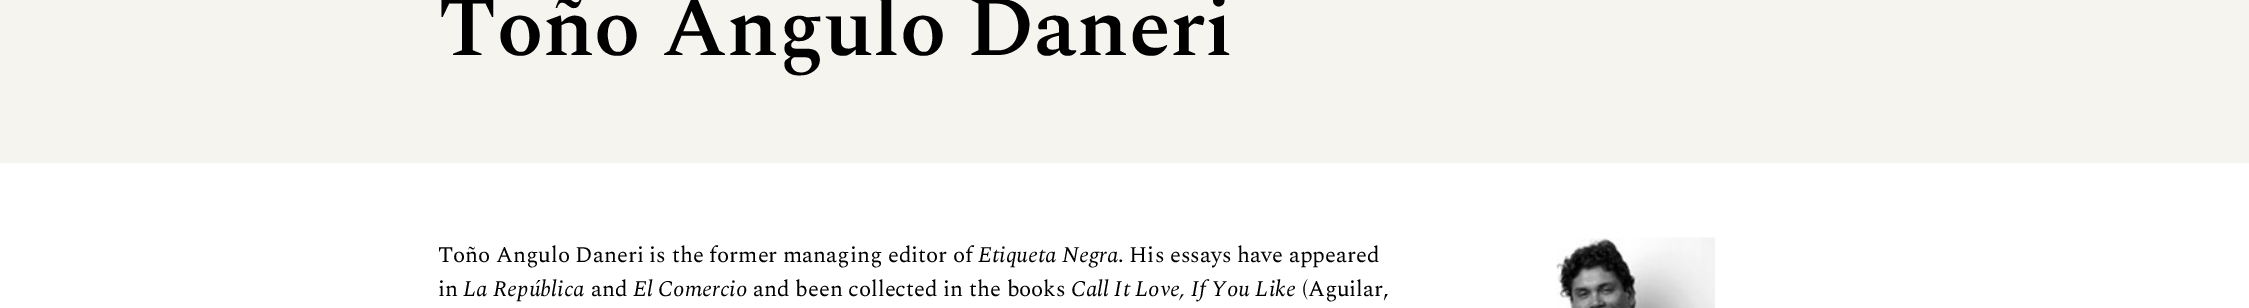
%!PS-Adobe-3.0
%%BoundingBox: 0 0 2249 308
%%LanguageLevel: 3
%%Pages: 1
%%EndComments
%%BeginProlog
/fn { [ exch dup neg 0 0 3 -1 roll 0 0 ] selectfont } def
/tx { moveto show } def
/bx { rectfill } def
/im { 5 dict begin { /h /w /y /x /name } { exch def } forall
  gsave x y translate w h scale
  w h 8 [w 0 0 h 0 0] name (r) file false 3 colorimage grestore end } def
%%EndProlog
%%BeginSetup
<< /PageSize [2249 308] >> setpagedevice
%%EndSetup
%%Page: 1 1
0 308 translate 1 -1 scale
4 setmiterlimit
1 setgray
0 0 2249 308 bx
0.965 0.957 0.937 setrgbcolor
0 0 2249 163 bx
/Spectral-SemiBold 85 fn
0 setgray
(Toño Angulo Daneri) 438 55 tx
/Spectral-Regular 22.5 fn
(Toño Angulo Daneri is the former managing editor of) 438 262 tx
/Spectral-Italic 22.5 fn
(Etiqueta Negra) 978 262 tx
/Spectral-Regular 22.5 fn
(. His essays have appeared) 1118 262 tx
(in) 438 296 tx
/Spectral-Italic 22.5 fn
(La República) 463 296 tx
/Spectral-Regular 22.5 fn
(and) 591 296 tx
/Spectral-Italic 22.5 fn
(El Comercio) 633 296 tx
/Spectral-Regular 22.5 fn
(and been collected in the books) 753 296 tx
/Spectral-Italic 22.5 fn
(Call It Love, If You Like) 1071 296 tx
/Spectral-Regular 22.5 fn
(\(Aguilar,) 1302 296 tx
(image0.raw) 1556 237 159 71 im
showpage
%%EOF
